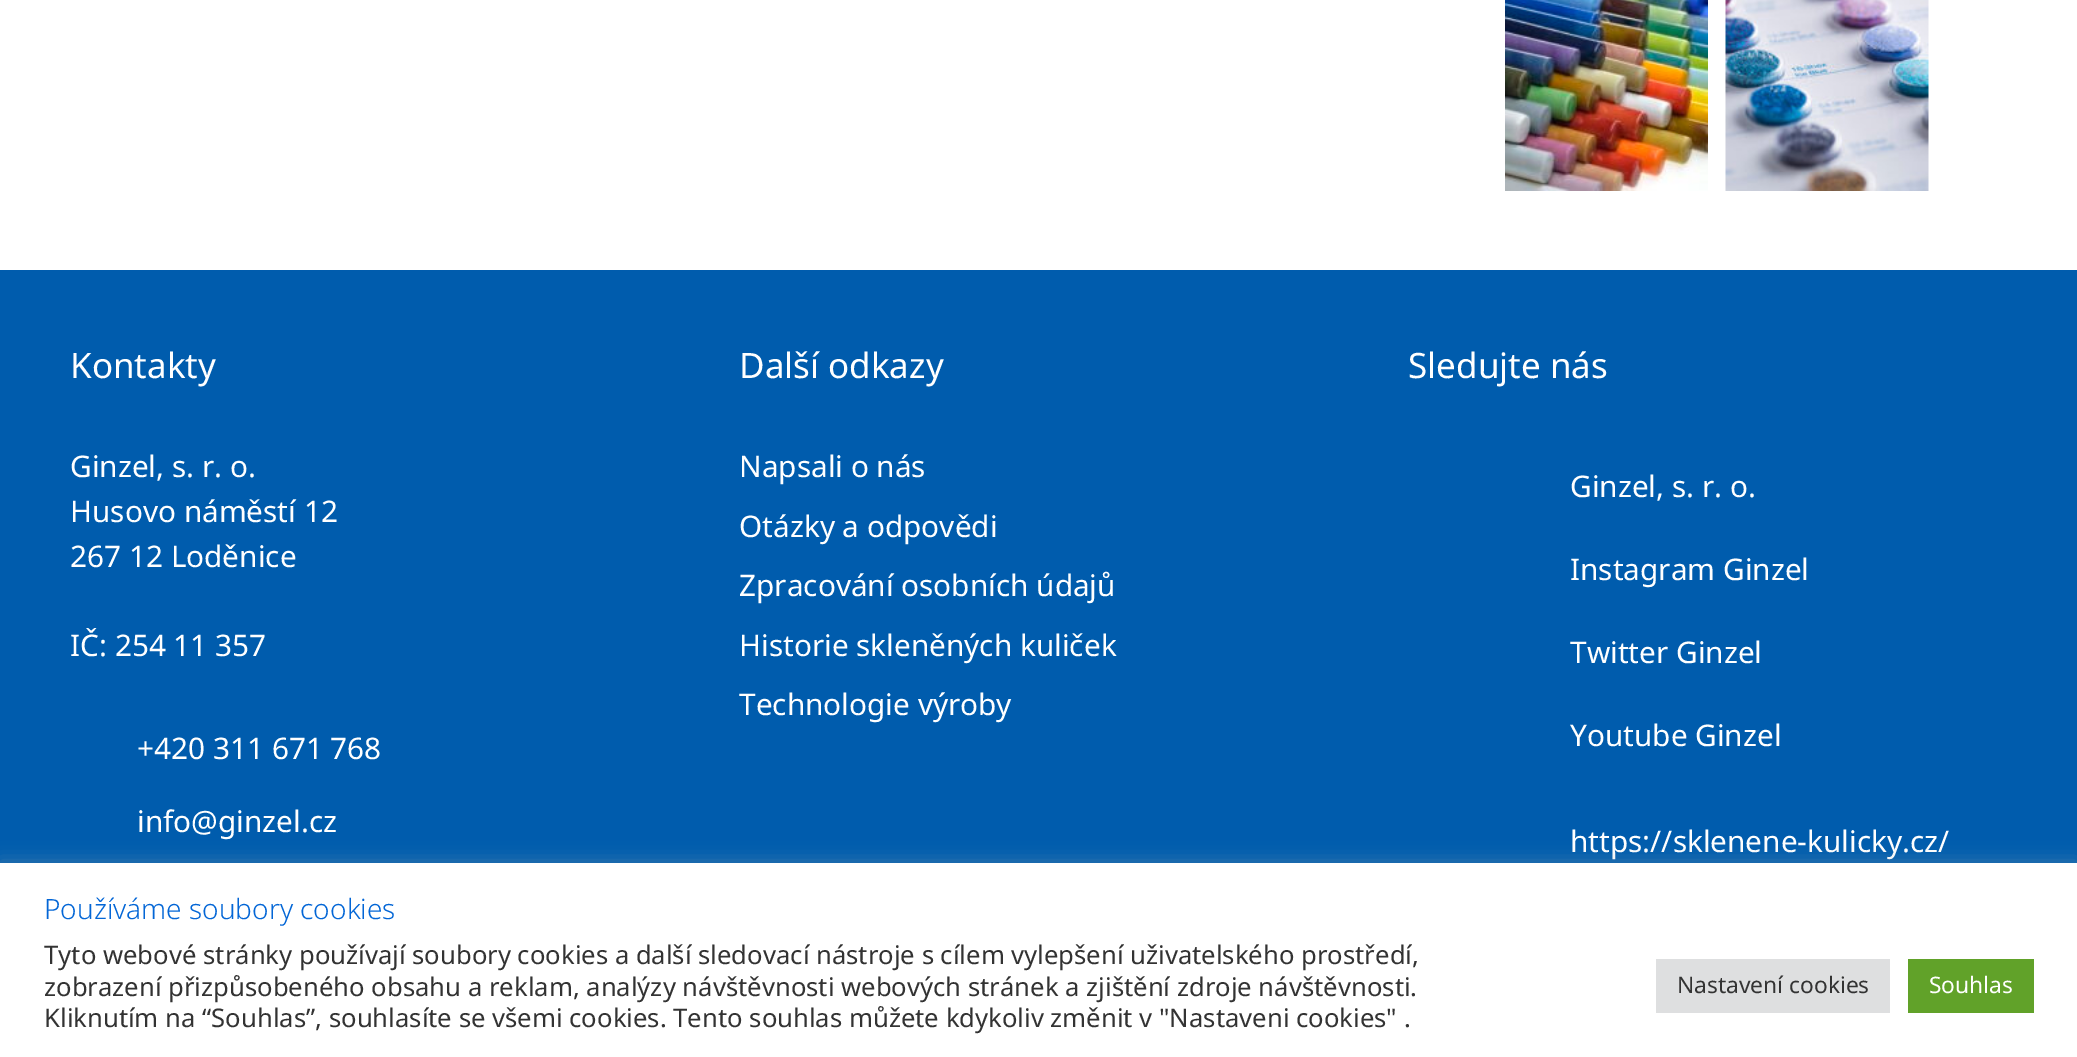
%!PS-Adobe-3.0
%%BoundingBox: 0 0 2077 1057
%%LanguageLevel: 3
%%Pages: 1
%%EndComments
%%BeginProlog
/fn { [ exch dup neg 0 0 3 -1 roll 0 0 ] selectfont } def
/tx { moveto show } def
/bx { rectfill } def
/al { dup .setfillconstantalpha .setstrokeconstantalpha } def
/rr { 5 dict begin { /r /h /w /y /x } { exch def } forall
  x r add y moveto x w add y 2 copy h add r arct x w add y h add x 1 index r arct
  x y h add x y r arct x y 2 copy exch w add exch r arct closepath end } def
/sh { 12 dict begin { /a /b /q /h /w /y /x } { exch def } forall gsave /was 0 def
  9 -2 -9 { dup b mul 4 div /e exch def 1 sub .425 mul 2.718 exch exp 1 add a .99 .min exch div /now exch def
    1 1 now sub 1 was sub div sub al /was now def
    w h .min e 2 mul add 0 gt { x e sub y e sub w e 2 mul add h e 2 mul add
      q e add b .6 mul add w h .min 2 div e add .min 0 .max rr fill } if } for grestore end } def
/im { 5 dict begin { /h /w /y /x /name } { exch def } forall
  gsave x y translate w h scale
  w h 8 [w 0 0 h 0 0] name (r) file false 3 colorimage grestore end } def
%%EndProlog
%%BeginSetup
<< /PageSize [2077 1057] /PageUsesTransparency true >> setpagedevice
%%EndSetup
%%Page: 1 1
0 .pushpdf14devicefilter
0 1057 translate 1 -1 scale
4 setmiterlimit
1 setgray
0 0 2077 1057 bx
(image0.raw) 1505 0 203 191 im
(image1.raw) 1725 0 204 191 im
0 0.361 0.678 setrgbcolor
0 270 2077 593 bx
/NotoSans-Regular 35 fn
1 setgray
(Kontakty) 70 378 tx
/NotoSans-Regular 29.75 fn
(Ginzel, s. r. o.) 70 477 tx
(Husovo náměstí 12) 70 522 tx
(267 12 Loděnice) 70 567 tx
(IČ: 254 11 357) 70 656 tx
(+420 311 671 768) 137 759 tx
(info@ginzel.cz) 137 832 tx
/NotoSans-Regular 35 fn
(Další odkazy) 739 378 tx
/NotoSans-Regular 29.75 fn
(Napsali o nás) 739 477 tx
(Otázky a odpovědi) 739 537 tx
(Zpracování osobních údajů) 739 596 tx
(Historie skleněných kuliček) 739 656 tx
(Technologie výroby) 739 715 tx
/NotoSans-Regular 35 fn
(Sledujte nás) 1408 378 tx
/NotoSans-Regular 29.75 fn
(Ginzel, s. r. o.) 1570 497 tx
(Instagram Ginzel) 1570 580 tx
(Twitter Ginzel) 1570 663 tx
(Youtube Ginzel) 1570 746 tx
(https://sklenene-kulicky.cz/) 1570 852 tx
0.675 0.671 0.671 setrgbcolor
0 861 2077 194 0 9 0.3 sh
1 setgray
0 863 2077 194 bx
/NotoSans-Light 28 fn
0.012 0.4 0.839 setrgbcolor
(Používáme soubory cookies) 44 919 tx
/NotoSans-Regular 25.67 fn
0.2 setgray
(Tyto webové stránky používají soubory cookies a další sledovací nástroje s cílem vylepšení uživatelského prostředí,) 44 964 tx
(zobrazení přizpůsobeného obsahu a reklam, analýzy návštěvnosti webových stránek a zjištění zdroje návštěvnosti.) 44 996 tx
(Kliknutím na “Souhlas”, souhlasíte se všemi cookies. Tento souhlas můžete kdykoliv změnit v "Nastaveni cookies" .) 44 1027 tx
0.871 0.875 0.878 setrgbcolor
1656 959 234 54 bx
/NotoSans-Regular 22.75 fn
0.2 setgray
(Nastavení cookies) 1677 993 tx
0.38 0.635 0.161 setrgbcolor
1908 959 126 54 bx
1 setgray
(Souhlas) 1929 993 tx
.poppdf14devicefilter showpage
%%EOF
